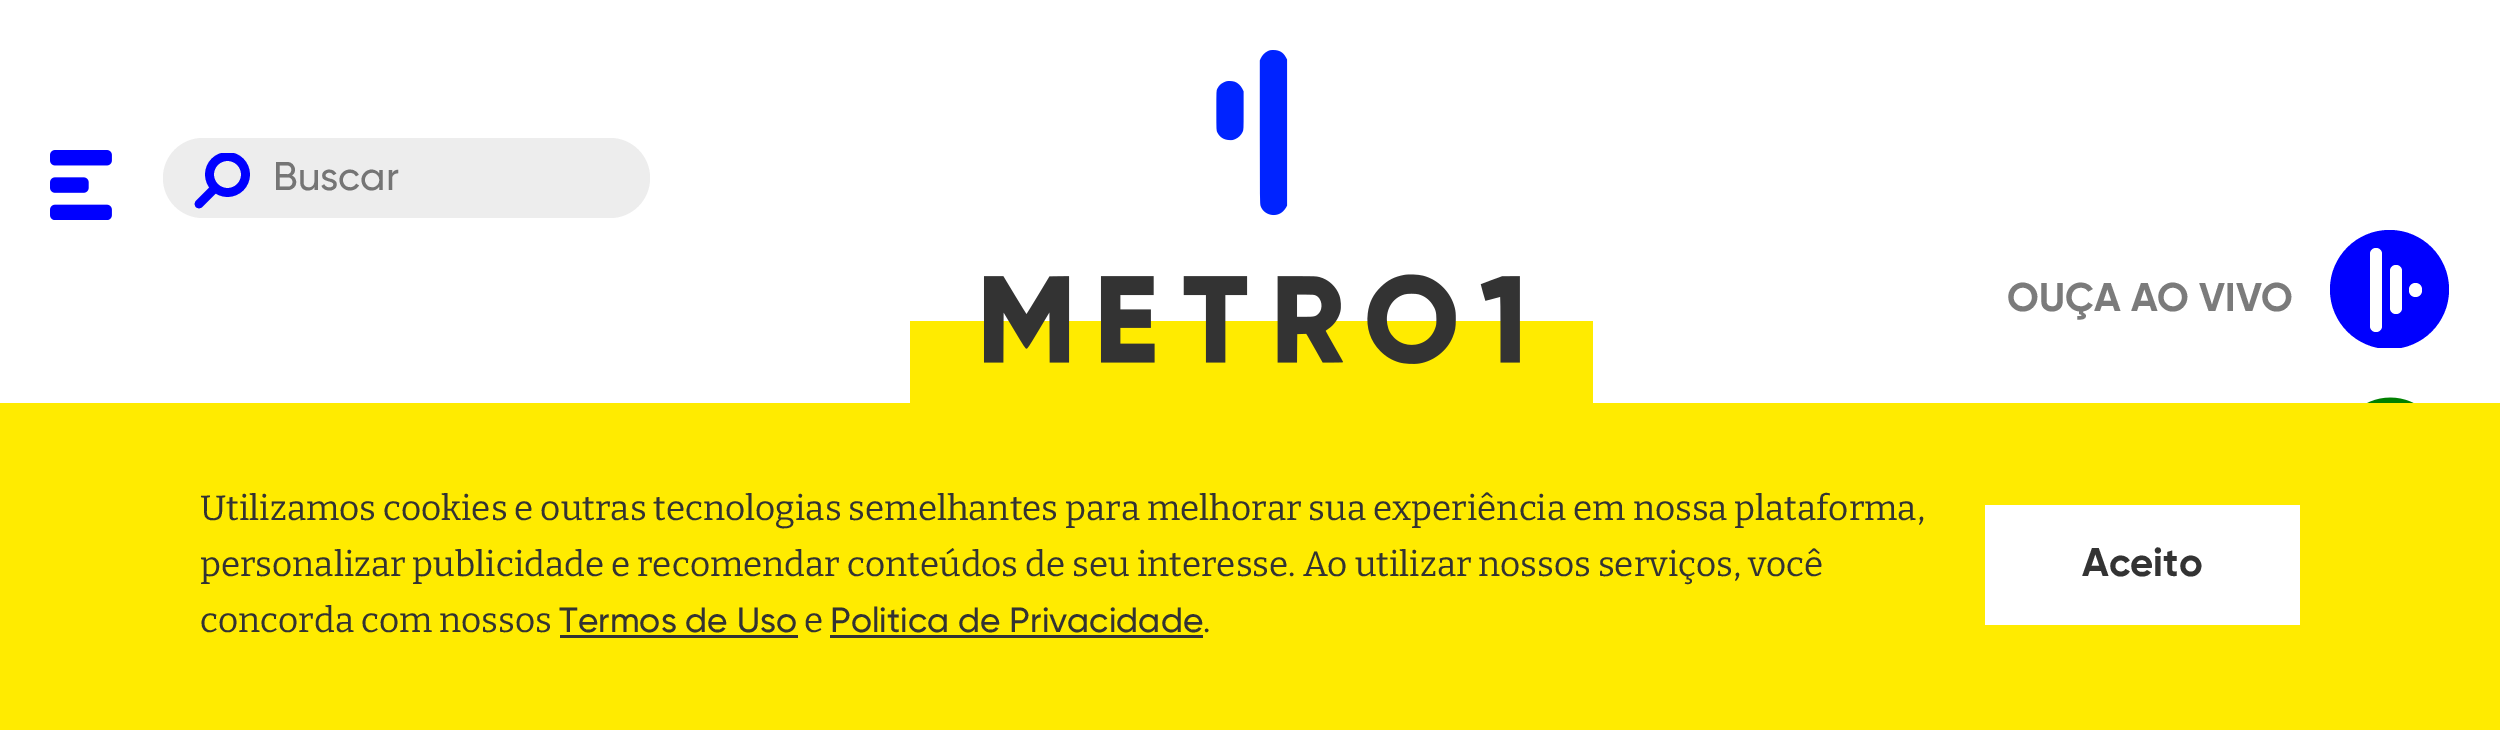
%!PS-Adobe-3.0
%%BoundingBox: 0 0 2500 730
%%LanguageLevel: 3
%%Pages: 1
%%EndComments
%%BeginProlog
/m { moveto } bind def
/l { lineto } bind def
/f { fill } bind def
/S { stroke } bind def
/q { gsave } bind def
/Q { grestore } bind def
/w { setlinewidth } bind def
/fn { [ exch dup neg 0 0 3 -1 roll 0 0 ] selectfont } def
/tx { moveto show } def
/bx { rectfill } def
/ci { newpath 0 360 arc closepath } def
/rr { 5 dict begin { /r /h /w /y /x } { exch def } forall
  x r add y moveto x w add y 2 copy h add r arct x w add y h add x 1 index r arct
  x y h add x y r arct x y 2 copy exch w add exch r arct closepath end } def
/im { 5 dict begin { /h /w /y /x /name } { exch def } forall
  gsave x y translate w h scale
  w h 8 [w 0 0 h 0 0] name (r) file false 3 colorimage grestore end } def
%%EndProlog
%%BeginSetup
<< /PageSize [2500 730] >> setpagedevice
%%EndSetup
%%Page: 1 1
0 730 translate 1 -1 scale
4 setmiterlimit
1 setgray
0 0 2500 730 bx
(image0.raw) 50 150 62 70 im
0.929 setgray
163 138 487 80 40 rr f
q
193 153 57 57 rectclip
0 0 1 setrgbcolor
8.7 w
227.5 174.5 18 ci S
Q
0 0 1 setrgbcolor
8.7 w
1 setlinecap
215 188 m 199 204 l S
/Gilroy-Medium 40 fn
0.459 setgray
(Buscar) 273 190 tx
(image1.raw) 910 50 683 353 im
/Gilroy-Bold 40 fn
0.482 setgray
(OUÇA AO VIVO) 2007 311 tx
q
2330 230 120 118 rectclip
0 0 1 setrgbcolor
2389.5 289.5 59.5 ci f
Q
1 setgray
2370 248 12 84 6 rr f
2390 265 12 49 6 rr f
2409 283 13 14 6.5 rr f
(image2.raw) 2367 397 47 6 im
1 0.922 0 setrgbcolor
0 403 2500 327 bx
/Bitter-Regular 35 fn
0.2 setgray
(Utilizamos cookies e outras tecnologias semelhantes para melhorar sua experiência em nossa plataforma,) 200 520 tx
(personalizar publicidade e recomendar conteúdos de seu interesse. Ao utilizar nossos serviços, você) 200 576 tx
(concorda com nossos) 200 632 tx
/Gilroy-Medium 35 fn
(Termos de Uso) 559 632 tx
560 635 238 3 bx
/Bitter-Regular 35 fn
(e) 804 632 tx
/Gilroy-Medium 35 fn
(Politica de Privacidade) 830 632 tx
830 635 373 3 bx
/Bitter-Regular 35 fn
(.) 1203 632 tx
1 setgray
1985 505 315 120 bx
/Gilroy-Bold 40 fn
0.2 setgray
(Aceito) 2082 576 tx
showpage
%%EOF
